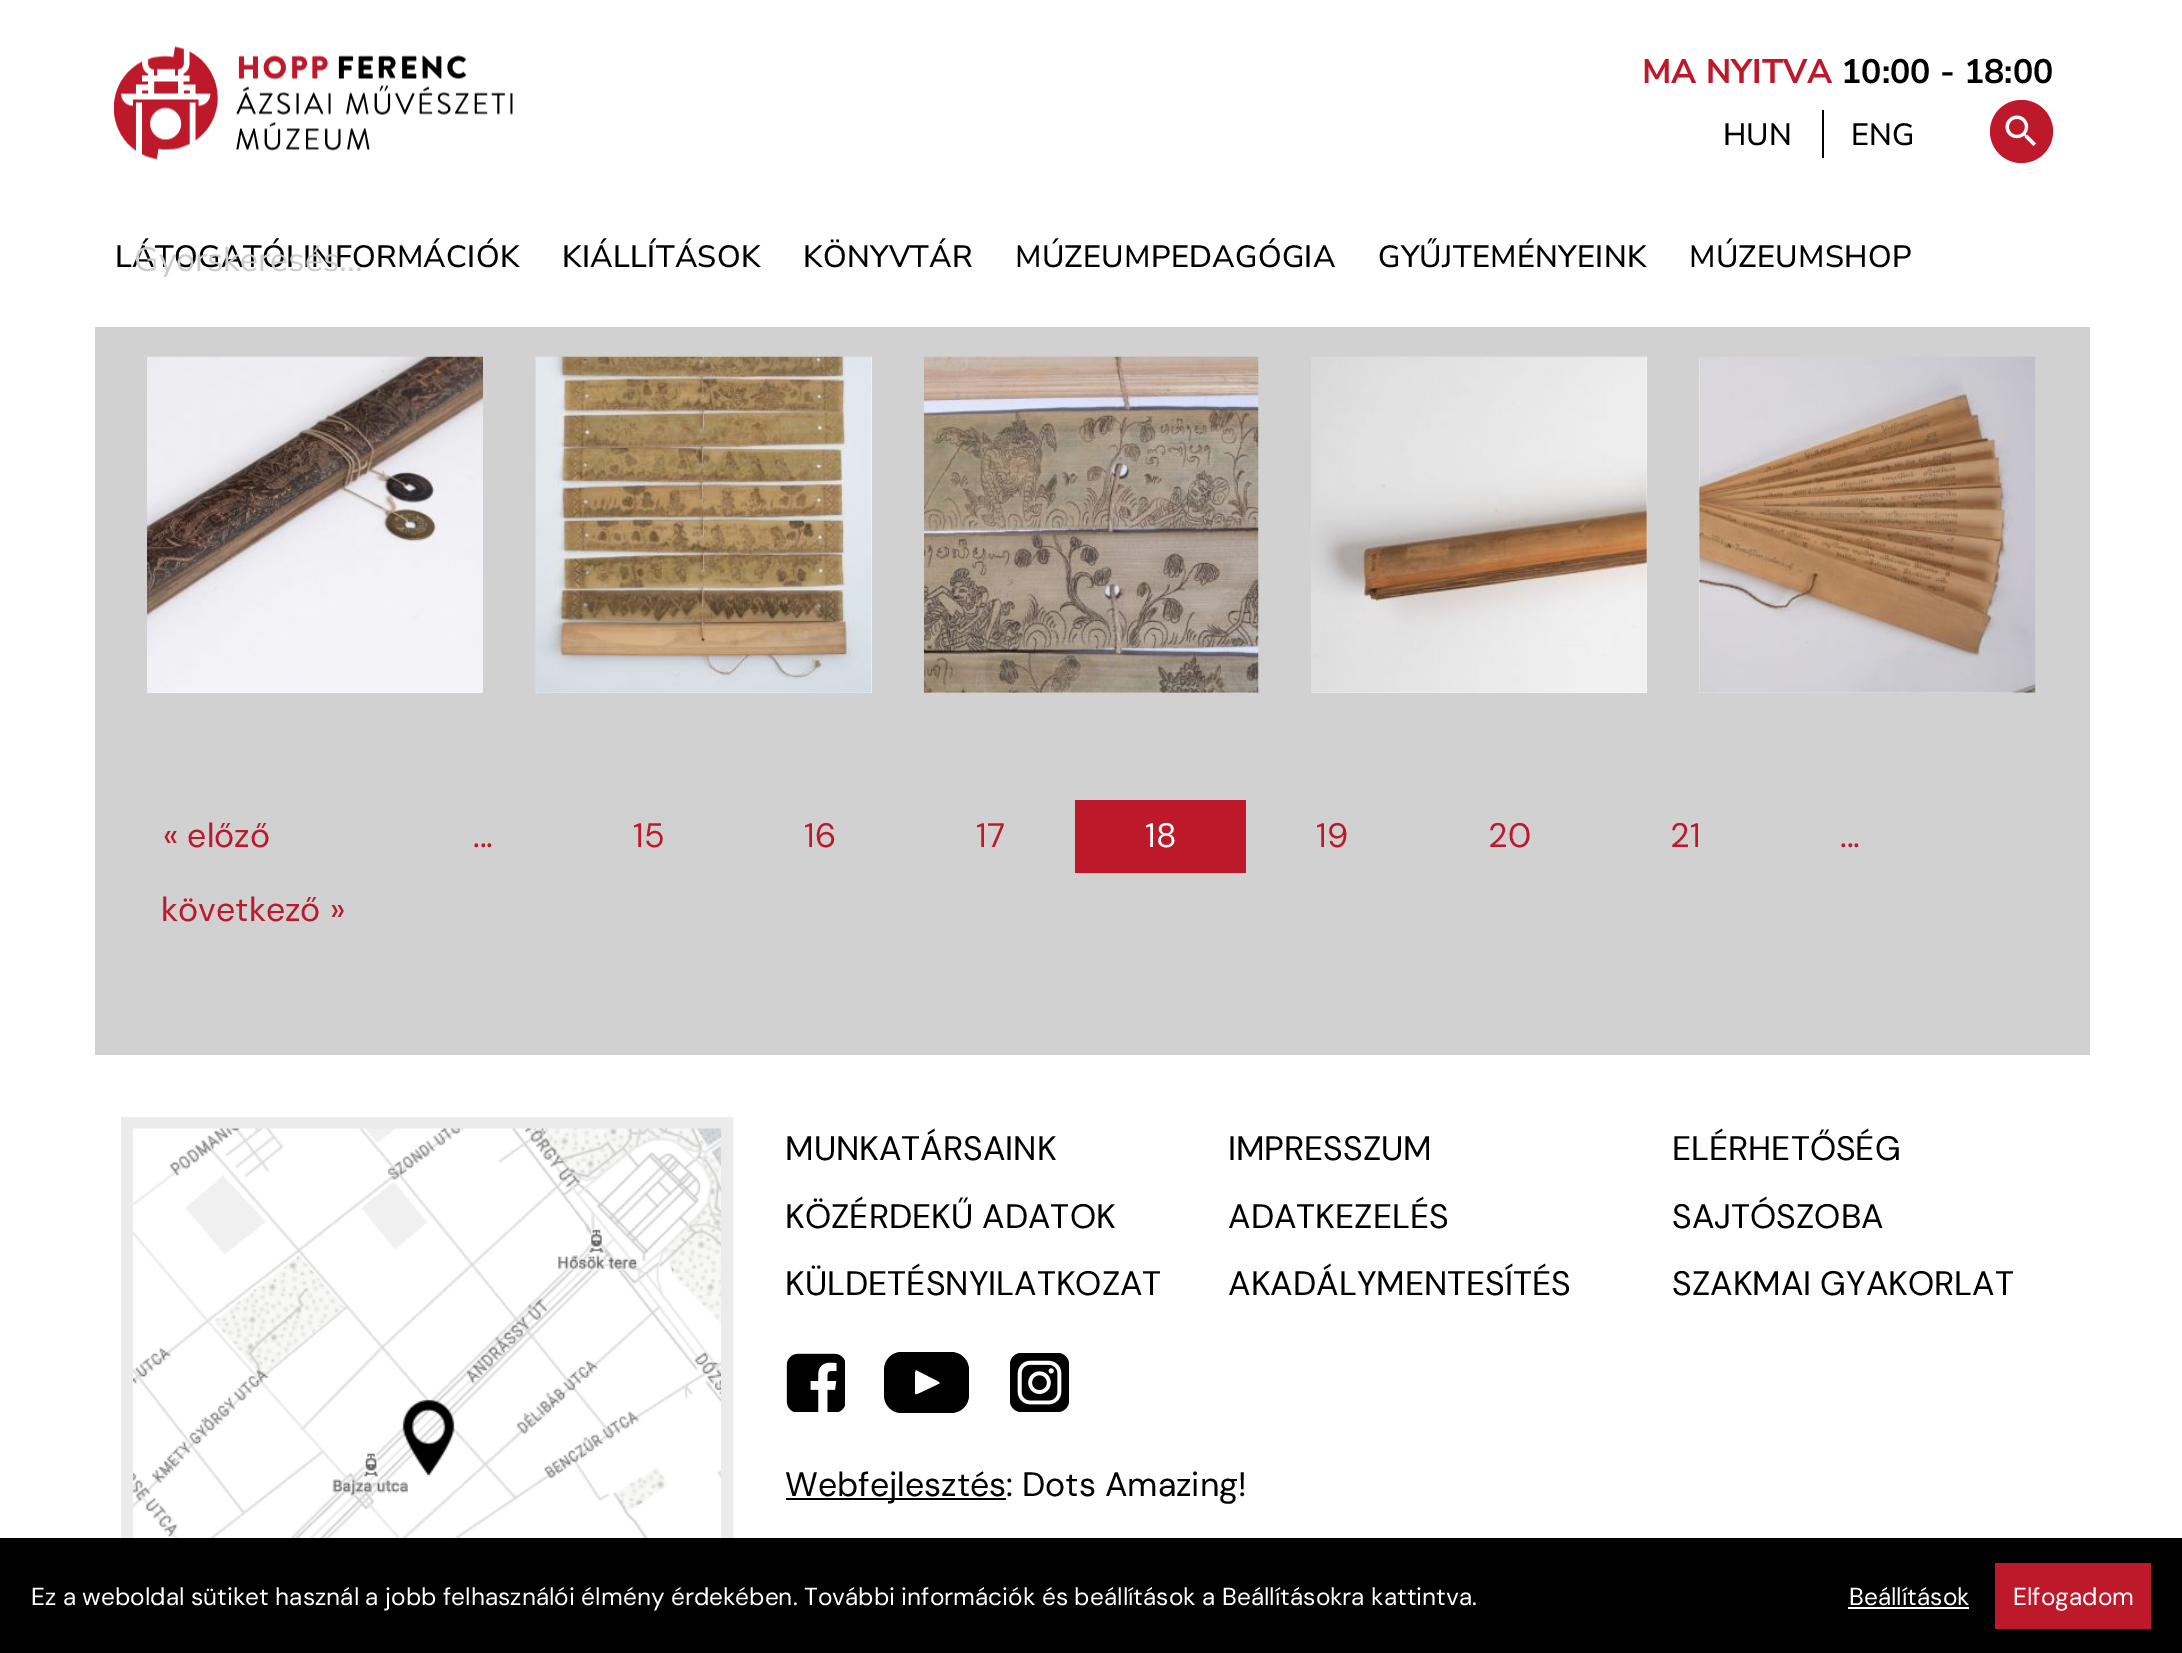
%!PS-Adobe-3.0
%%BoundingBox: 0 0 2182 1653
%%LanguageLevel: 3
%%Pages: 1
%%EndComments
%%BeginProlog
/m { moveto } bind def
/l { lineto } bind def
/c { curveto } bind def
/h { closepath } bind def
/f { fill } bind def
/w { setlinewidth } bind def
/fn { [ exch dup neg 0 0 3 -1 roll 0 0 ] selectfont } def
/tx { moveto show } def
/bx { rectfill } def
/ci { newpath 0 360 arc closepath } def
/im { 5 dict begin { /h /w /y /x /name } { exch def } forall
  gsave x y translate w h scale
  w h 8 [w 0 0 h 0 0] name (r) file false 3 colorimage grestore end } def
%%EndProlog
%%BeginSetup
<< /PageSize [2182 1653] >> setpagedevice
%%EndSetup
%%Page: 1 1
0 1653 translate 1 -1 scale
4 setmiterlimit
1 setgray
0 0 2182 1653 bx
(image0.raw) 114 46 399 114 im
/NunitoSans-Bold 33.9 fn
0.745 0.098 0.165 setrgbcolor
(MA NYITVA) 1642 83 tx
0 setgray
(10:00 - 18:00) 1841 83 tx
/NunitoSans-Medium 30.75 fn
(HUN) 1723 145 tx
1822 110 2 48 bx
(ENG) 1851 145 tx
0.745 0.098 0.165 setrgbcolor
2021.5 131.5 31.5 ci f
(image1.raw) 2005 115 31 31 im
0 setgray
115 267 m 0.3 0 (LÁTOGATÓI INFORMÁCIÓK) ashow
/NunitoSans-Regular 33.9 fn
0.8 setgray
(Gyorskeresés...) 134 271 tx
/NunitoSans-Medium 30.75 fn
0 setgray
562 267 m 0.3 0 (KIÁLLÍTÁSOK) ashow
803 267 m 0.3 0 (KÖNYVTÁR) ashow
1015 267 m 0.3 0 (MÚZEUMPEDAGÓGIA) ashow
1378 267 m 0.3 0 (GYŰJTEMÉNYEINK) ashow
1689 267 m 0.3 0 (MÚZEUMSHOP) ashow
0.82 setgray
95 327 1995 728 bx
(image2.raw) 147 356 336 337 im
1 setgray
536 357 336 336 bx
(image3.raw) 535 356 337 337 im
(image4.raw) 924 356 335 337 im
1311 357 336 336 bx
(image5.raw) 1311 356 336 337 im
1699 357 336 336 bx
(image6.raw) 1699 356 337 337 im
/DMSans-Regular 33.9 fn
0.745 0.098 0.165 setrgbcolor
(« előző) 163 847 tx
(...) 473 847 tx
(15) 633 847 tx
(16) 804 847 tx
(17) 976 847 tx
1075 800 171 73 bx
1 setgray
(18) 1145 847 tx
0.745 0.098 0.165 setrgbcolor
(19) 1316 847 tx
(20) 1488 847 tx
(21) 1670 847 tx
(...) 1840 847 tx
(következő ») 161 921 tx
0.922 setgray
12 w
127 1123 600 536 rectstroke
(image7.raw) 133 1128 588 410 im
0 setgray
(MUNKATÁRSAINK) 785 1160 tx
(KÖZÉRDEKŰ ADATOK) 785 1228 tx
(KÜLDETÉSNYILATKOZAT) 785 1295 tx
(IMPRESSZUM) 1228 1160 tx
(ADATKEZELÉS) 1228 1228 tx
(AKADÁLYMENTESÍTÉS) 1228 1295 tx
(ELÉRHETŐSÉG) 1672 1160 tx
(SAJTÓSZOBA) 1672 1228 tx
(SZAKMAI GYAKORLAT) 1672 1295 tx
(image8.raw) 786 1353 59 59 im
951 1352 m 901 1352 l 892 1352 884 1360 884 1370 c 884 1395 l 884 1405 892 1413 901 1413 c 951 1413 l 961 1413 969 1405 969 1395 c 969 1370 l 969 1360 961 1352 951 1352 c h 939 1384 m 920 1393 l 913 1396 915 1395 915 1386 c 915 1384 914 1370 916 1370 c 928 1376 l 937 1381 942 1382 939 1384 c h f
(image9.raw) 1010 1353 59 59 im
786 1498 220 2 bx
(Webfejlesztés: Dots Amazing!) 785 1496 tx
0 1538 2182 115 bx
/DMSans-Regular 24.5 fn
1 setgray
(Ez a weboldal sütiket használ a jobb felhasználói élmény érdekében. További információk és beállítások a Beállításokra kattintva.) 31 1605 tx
(Beállítások) 1849 1605 tx
1848 1607 121 2 bx
0.745 0.098 0.165 setrgbcolor
1995 1563 156 66 bx
1 setgray
(Elfogadom) 2013 1605 tx
showpage
%%EOF
